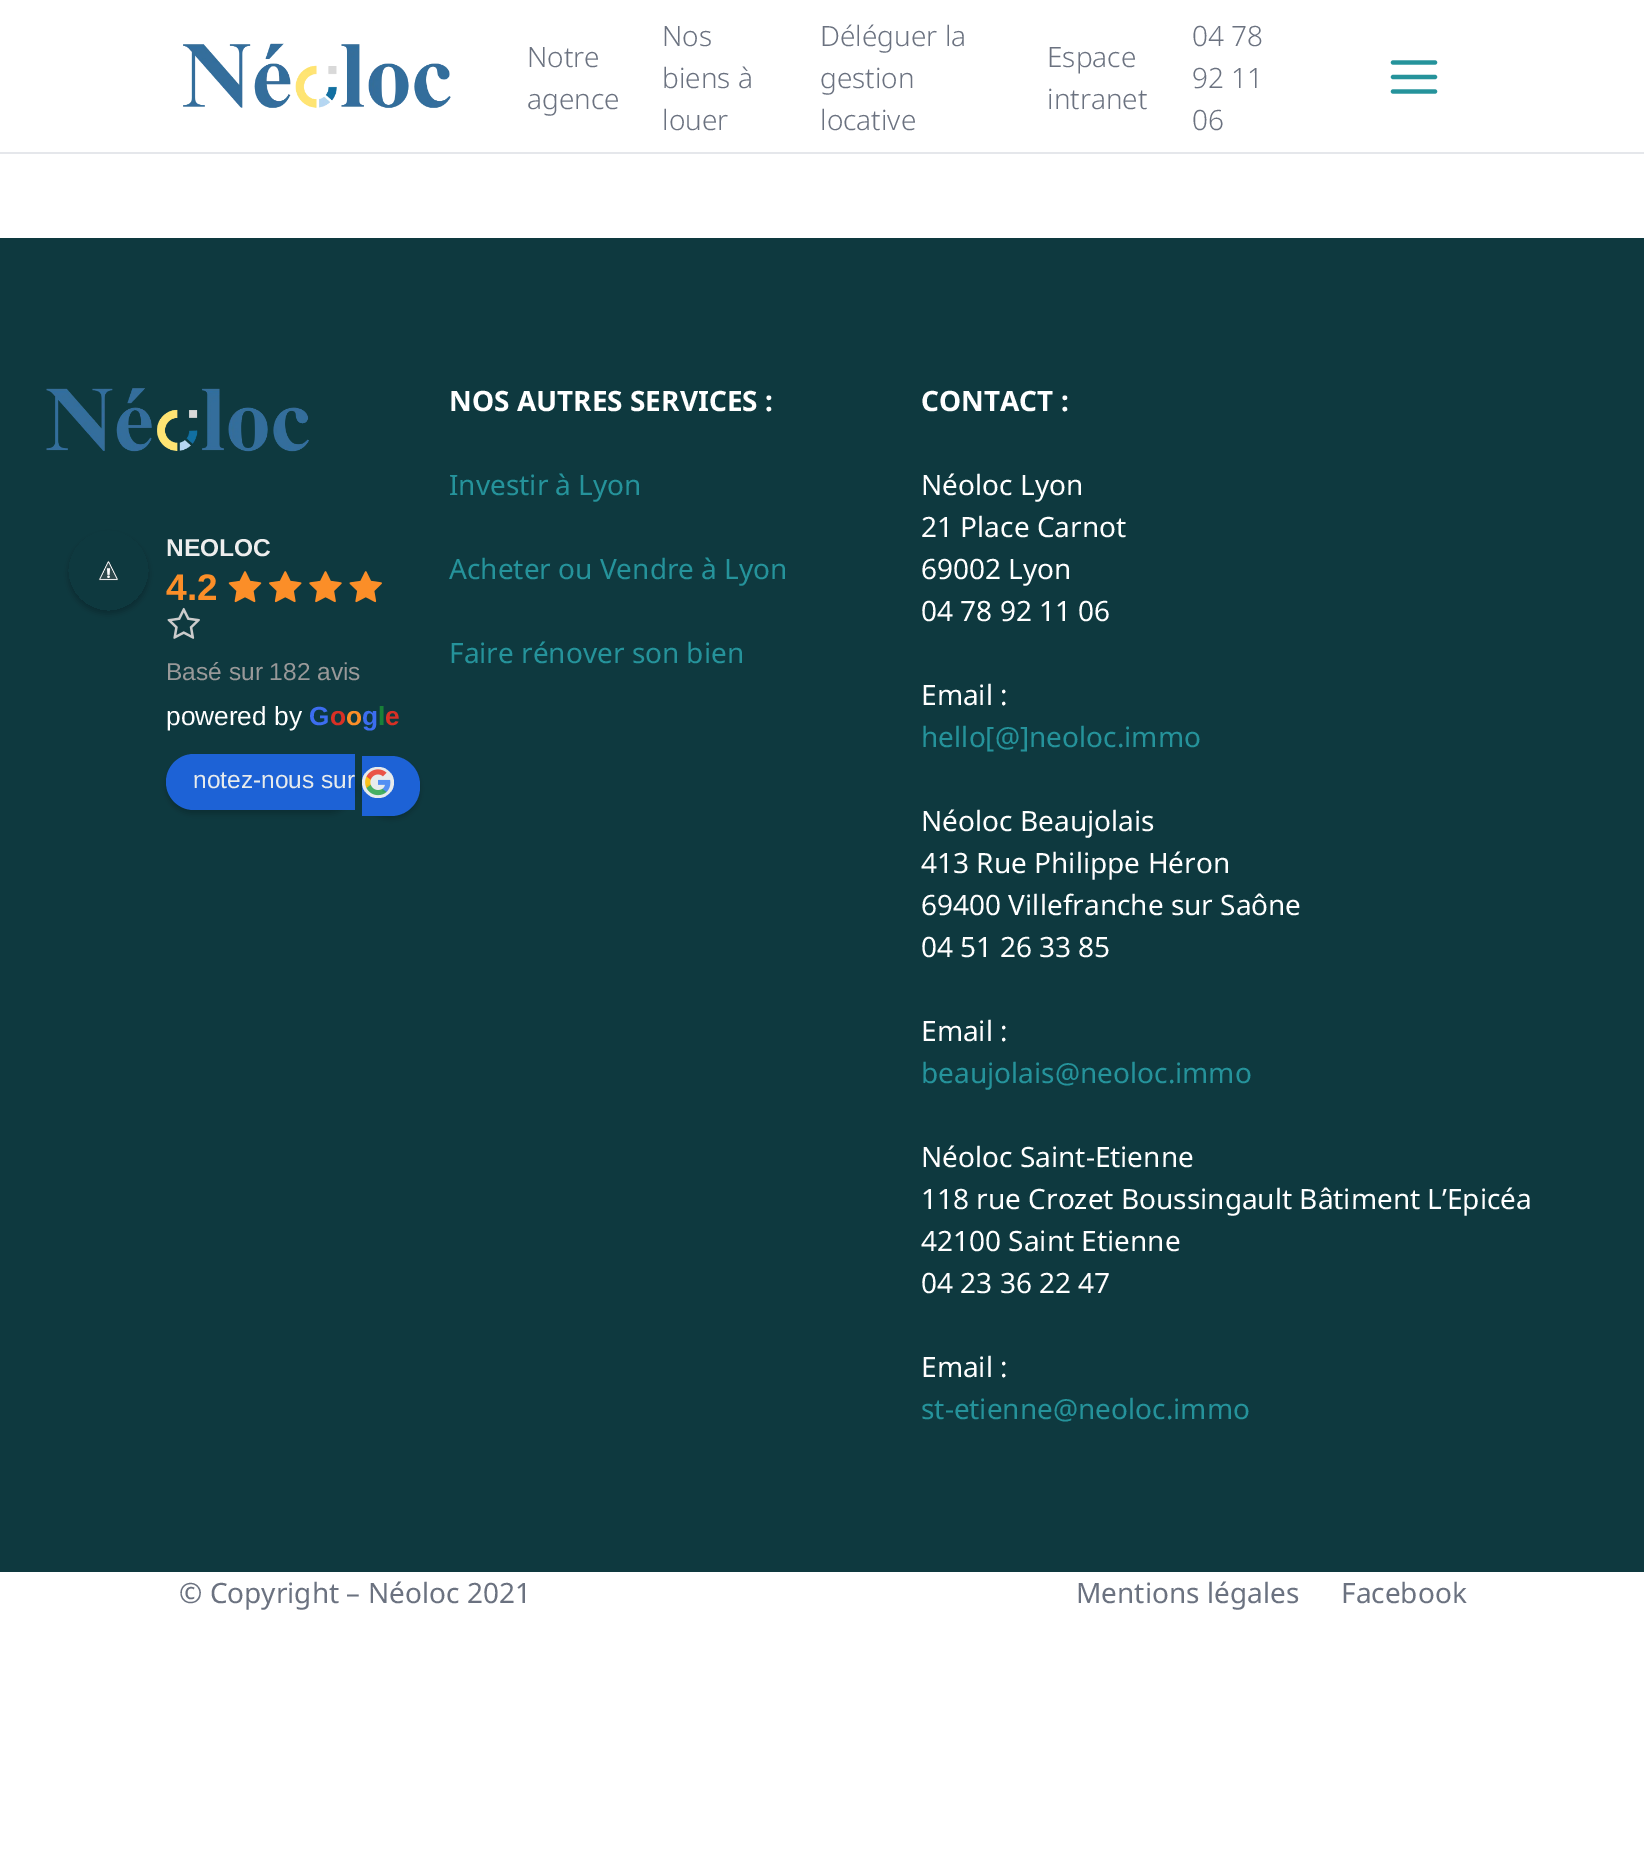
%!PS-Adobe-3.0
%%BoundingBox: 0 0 1644 1875
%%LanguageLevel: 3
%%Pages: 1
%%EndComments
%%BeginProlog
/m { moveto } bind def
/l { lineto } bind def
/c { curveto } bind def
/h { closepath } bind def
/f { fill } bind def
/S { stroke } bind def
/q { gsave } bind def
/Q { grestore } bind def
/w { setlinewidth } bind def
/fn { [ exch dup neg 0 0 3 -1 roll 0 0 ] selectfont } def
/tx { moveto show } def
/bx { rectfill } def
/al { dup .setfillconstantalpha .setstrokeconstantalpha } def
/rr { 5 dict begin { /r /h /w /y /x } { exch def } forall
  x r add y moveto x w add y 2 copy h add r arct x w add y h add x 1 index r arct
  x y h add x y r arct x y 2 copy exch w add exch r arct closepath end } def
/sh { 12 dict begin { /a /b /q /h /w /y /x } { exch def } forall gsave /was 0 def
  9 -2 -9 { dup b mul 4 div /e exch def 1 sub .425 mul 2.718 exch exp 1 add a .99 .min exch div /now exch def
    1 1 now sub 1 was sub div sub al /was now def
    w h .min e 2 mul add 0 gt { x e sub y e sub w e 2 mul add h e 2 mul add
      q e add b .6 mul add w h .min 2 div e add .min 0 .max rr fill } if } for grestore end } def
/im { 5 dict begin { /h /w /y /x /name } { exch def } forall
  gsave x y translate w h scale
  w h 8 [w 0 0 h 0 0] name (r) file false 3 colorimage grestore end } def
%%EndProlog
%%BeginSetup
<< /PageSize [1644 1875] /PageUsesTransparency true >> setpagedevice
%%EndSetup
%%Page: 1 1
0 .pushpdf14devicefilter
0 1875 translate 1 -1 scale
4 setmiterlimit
1 setgray
0 0 1644 1875 bx
0.898 0.906 0.922 setrgbcolor
0 152 1644 2 bx
(image0.raw) 183 43 268 65 im
/NotoSans-Light 28 fn
0.42 0.447 0.502 setrgbcolor
(Notre) 527 67 tx
(agence) 527 109 tx
(Nos) 662 46 tx
(biens à) 662 88 tx
(louer) 662 130 tx
(Déléguer la) 820 46 tx
(gestion) 820 88 tx
(locative) 820 130 tx
(Espace) 1047 67 tx
(intranet) 1047 109 tx
(04 78) 1192 46 tx
(92 11) 1192 88 tx
(06) 1192 130 tx
0.145 0.576 0.608 setrgbcolor
4.2 w
1 setlinecap
1393 62.5 m 1435 62.5 l 1393 77 m 1435 77 l 1393 91.5 m 1435 91.5 l S
0.055 0.224 0.247 setrgbcolor
0 238 1644 1334 bx
(image1.raw) 46 388 263 64 im
q
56 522 m 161 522 l 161 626 l 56 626 l h 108.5 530 m 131 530 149 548 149 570.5 c 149 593 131 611 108.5 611 c 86 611 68 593 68 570.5 c 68 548 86 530 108.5 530 c h eoclip newpath
0 setgray
68 534 81 80 40 3.5 0.24 sh
Q
(image2.raw) 98 560 21 21 im
/LiberationSans-Bold 24.5 fn
0.933 setgray
(NEOLOC) 166 556 tx
(image3.raw) 228 571 34 32 im
(image4.raw) 269 571 33 32 im
(image5.raw) 309 571 33 32 im
(image6.raw) 349 571 33 32 im
(image7.raw) 167 607 33 32 im
/LiberationSans-Bold 37 fn
0.984 0.557 0.157 setrgbcolor
(4.2) 166 600 tx
/LiberationSans-Regular 24.5 fn
0.6 setgray
(Basé sur 182 avis) 166 680 tx
/LiberationSans-Regular 26.25 fn
1 setgray
(powered by) 166 725 tx
/LiberationSans-Bold 26.25 fn
0.235 0.427 0.941 setrgbcolor
(G) 309 725 tx
0.851 0.188 0.145 setrgbcolor
(o) 330 725 tx
0.984 0.557 0.157 setrgbcolor
(o) 346 725 tx
0.235 0.427 0.941 setrgbcolor
(g) 362 725 tx
0.094 0.502 0.22 setrgbcolor
(l) 378 725 tx
0.851 0.188 0.145 setrgbcolor
(e) 385 725 tx
0.004 0.024 0.024 setrgbcolor
166 758 189 56 28 3.5 0.24 sh
0.114 0.384 0.839 setrgbcolor
194 754 m 355 754 l 355 810 l 194 810 l 178.5 810 166 797.5 166 782 c 166 766.5 178.5 754 194 754 c h f
0.004 0.024 0.024 setrgbcolor
362 760 58 59 29 3.5 0.24 sh
0.114 0.384 0.839 setrgbcolor
362 756 m 391 756 l 407 756 420 769 420 785 c 420 787 l 420 803 407 816 391 816 c 362 816 l h f
/LiberationSans-Regular 24.5 fn
0.906 0.922 0.925 setrgbcolor
(notez-nous sur) 193 788 tx
362 767 32 31 15.5 rr f
(image8.raw) 365 769 26 27 im
/NotoSans-Bold 28 fn
1 setgray
(NOS AUTRES SERVICES :) 449 411 tx
/NotoSans-Regular 28 fn
0.145 0.576 0.608 setrgbcolor
(Investir à Lyon) 449 495 tx
(Acheter ou Vendre à Lyon) 449 579 tx
(Faire rénover son bien) 449 663 tx
/NotoSans-Bold 28 fn
1 setgray
(CONTACT :) 921 411 tx
/NotoSans-Regular 28 fn
(Néoloc Lyon) 921 495 tx
(21 Place Carnot) 921 537 tx
(69002 Lyon) 921 579 tx
(04 78 92 11 06) 921 621 tx
(Email :) 921 705 tx
0.145 0.576 0.608 setrgbcolor
(hello[@]neoloc.immo) 921 747 tx
1 setgray
(Néoloc Beaujolais) 921 831 tx
(413 Rue Philippe Héron) 921 873 tx
(69400 Villefranche sur Saône) 921 915 tx
(04 51 26 33 85) 921 957 tx
(Email :) 921 1041 tx
0.145 0.576 0.608 setrgbcolor
(beaujolais@neoloc.immo) 921 1083 tx
1 setgray
(Néoloc Saint-Etienne) 921 1167 tx
(118 rue Crozet Boussingault Bâtiment L’Epicéa) 921 1209 tx
(42100 Saint Etienne) 921 1251 tx
(04 23 36 22 47) 921 1293 tx
(Email :) 921 1377 tx
0.145 0.576 0.608 setrgbcolor
(st-etienne@neoloc.immo) 921 1419 tx
0.42 0.447 0.502 setrgbcolor
(© Copyright – Néoloc 2021) 179 1603 tx
(Mentions légales) 1076 1603 tx
(Facebook) 1341 1603 tx
.poppdf14devicefilter showpage
%%EOF
